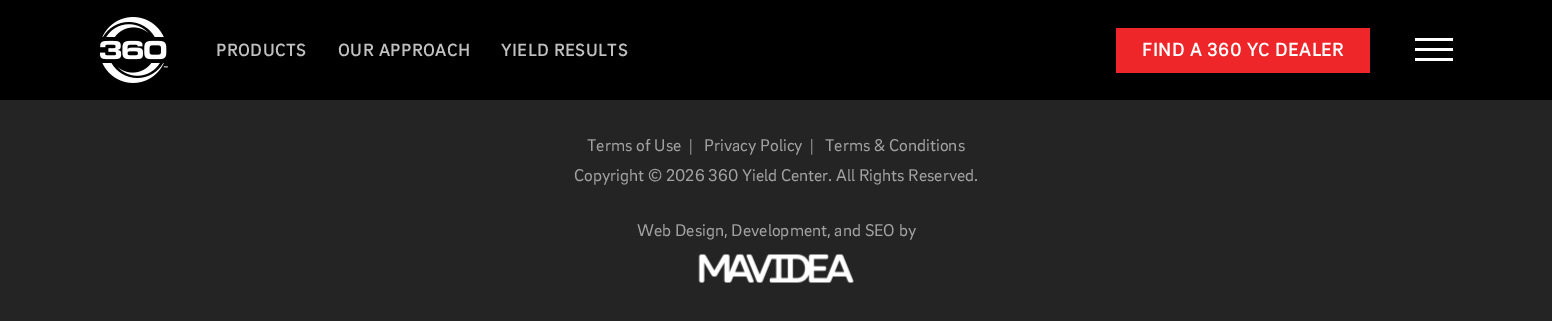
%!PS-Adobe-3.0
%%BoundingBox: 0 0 1552 321
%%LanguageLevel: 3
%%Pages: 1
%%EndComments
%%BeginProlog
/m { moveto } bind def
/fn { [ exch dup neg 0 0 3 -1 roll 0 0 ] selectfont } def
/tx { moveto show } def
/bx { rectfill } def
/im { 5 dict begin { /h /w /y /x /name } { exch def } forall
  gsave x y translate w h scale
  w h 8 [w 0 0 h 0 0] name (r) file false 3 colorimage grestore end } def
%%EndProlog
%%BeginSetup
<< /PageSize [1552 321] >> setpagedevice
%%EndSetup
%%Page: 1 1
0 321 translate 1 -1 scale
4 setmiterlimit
0.141 setgray
0 0 1552 321 bx
0 setgray
0 0 1552 100 bx
(image0.raw) 100 17 68 66 im
/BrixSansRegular-Bold 17.5 fn
0.753 setgray
216 56 m 0.9 0 (PRODUCTS) ashow
338 56 m 0.9 0 (OUR APPROACH) ashow
501 56 m 0.9 0 (YIELD RESULTS) ashow
0.933 0.145 0.161 setrgbcolor
1116 28 254 45 bx
/BrixSansRegular-Bold 18.75 fn
1 setgray
1142 56 m 0.9 0 (FIND A 360 YC DEALER) ashow
1415 48 38 3 bx
1415 38 38 3 bx
1415 58 38 3 bx
/BrixSansRegular-Regular 17.5 fn
0.627 setgray
(Terms of Use) 587 151 tx
(|) 689 151 tx
(Privacy Policy) 704 151 tx
(|) 810 151 tx
(Terms & Conditions) 825 151 tx
(Copyright © 2026 360 Yield Center. All Rights Reserved.) 574 181 tx
(Web Design, Development, and SEO by) 637 236 tx
(image1.raw) 698 254 156 29 im
showpage
%%EOF
